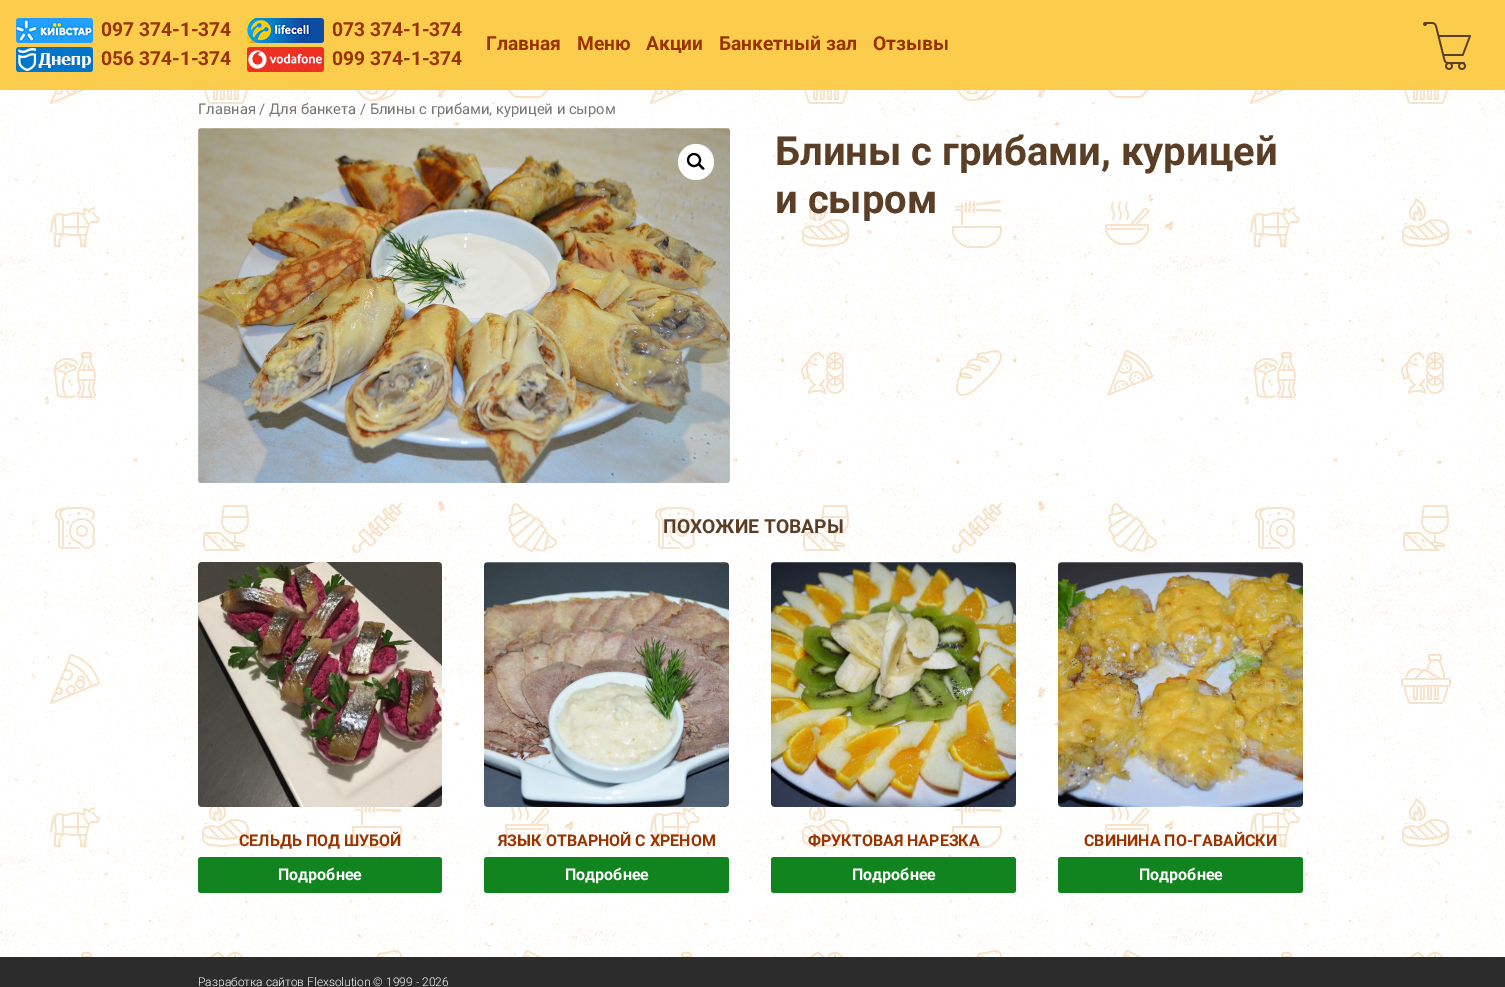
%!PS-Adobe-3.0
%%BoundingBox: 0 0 1505 987
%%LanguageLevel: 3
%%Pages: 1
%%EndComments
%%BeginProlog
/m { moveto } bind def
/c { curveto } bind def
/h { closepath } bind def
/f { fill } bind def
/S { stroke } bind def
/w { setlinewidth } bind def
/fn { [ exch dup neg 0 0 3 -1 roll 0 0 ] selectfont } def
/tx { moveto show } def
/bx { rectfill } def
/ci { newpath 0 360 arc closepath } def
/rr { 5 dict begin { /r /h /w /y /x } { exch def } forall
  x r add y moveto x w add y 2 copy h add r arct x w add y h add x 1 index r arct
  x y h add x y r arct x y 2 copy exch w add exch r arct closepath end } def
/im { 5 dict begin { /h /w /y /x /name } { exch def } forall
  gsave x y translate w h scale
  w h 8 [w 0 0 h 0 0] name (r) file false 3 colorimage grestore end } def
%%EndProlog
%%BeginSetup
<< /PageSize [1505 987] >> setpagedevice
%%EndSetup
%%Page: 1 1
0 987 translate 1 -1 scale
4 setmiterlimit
1 setgray
0 0 1505 987 bx
(image0.raw) 0 90 1505 867 im
0.988 0.8 0.298 setrgbcolor
0 0 1505 90 bx
(image1.raw) 16 18 77 25 im
/Roboto-Bold 19.25 fn
0.6 0.2 0 setrgbcolor
(097 374-1-374) 101 36 tx
(image2.raw) 16 47 77 25 im
(056 374-1-374) 101 65 tx
(image3.raw) 247 18 77 25 im
(073 374-1-374) 332 36 tx
(image4.raw) 247 47 77 25 im
(099 374-1-374) 332 65 tx
(Главная) 486 50 tx
(Меню) 577 50 tx
(Акции) 646 50 tx
(Банкетный зал) 719 50 tx
(Отзывы) 873 50 tx
(image5.raw) 1423 22 48 48 im
/Roboto-Regular 14.75 fn
0.463 setgray
(Главная / Для банкета / Блины с грибами, курицей и сыром) 198 114 tx
(image6.raw) 198 128 532 355 im
1 setgray
696 162 18 ci f
0 setgray
2 w
694 160 6 ci S
698.5 164 m 699.5 162.5 701.5 165.5 702 166 c 702.5 166.5 705.5 168.5 704 169.5 c 703 170.5 701 168 700.5 167.5 c 700 167 697.5 165 698.5 164 c h f
/Roboto-Bold 40 fn
0.353 0.243 0.149 setrgbcolor
(Блины с грибами, курицей) 775 165 tx
(и сыром) 775 213 tx
/Roboto-Bold 19.25 fn
(ПОХОЖИЕ ТОВАРЫ) 663 533 tx
(image7.raw) 198 562 244 245 im
/Roboto-Bold 16 fn
0.6 0.2 0 setrgbcolor
(СЕЛЬДЬ ПОД ШУБОЙ) 239 846 tx
0.071 0.518 0.122 setrgbcolor
198 857 244 36 3 rr f
1 setgray
(Подробнее) 278 880 tx
(image8.raw) 484 562 245 245 im
0.6 0.2 0 setrgbcolor
(ЯЗЫК ОТВАРНОЙ С ХРЕНОМ) 498 846 tx
0.071 0.518 0.122 setrgbcolor
484 857 245 36 3 rr f
1 setgray
(Подробнее) 565 880 tx
(image9.raw) 771 562 245 245 im
0.6 0.2 0 setrgbcolor
(ФРУКТОВАЯ НАРЕЗКА) 808 846 tx
0.071 0.518 0.122 setrgbcolor
771 857 245 36 3 rr f
1 setgray
(Подробнее) 852 880 tx
(image10.raw) 1058 562 245 245 im
0.6 0.2 0 setrgbcolor
(СВИНИНА ПО-ГАВАЙСКИ) 1084 846 tx
0.071 0.518 0.122 setrgbcolor
1058 857 245 36 3 rr f
1 setgray
(Подробнее) 1139 880 tx
0.173 setgray
0 957 1505 30 bx
/Roboto-Light 12 fn
1 setgray
(Разработка сайтов Flexsolution © 1999 - 2026) 198 986 tx
showpage
%%EOF
